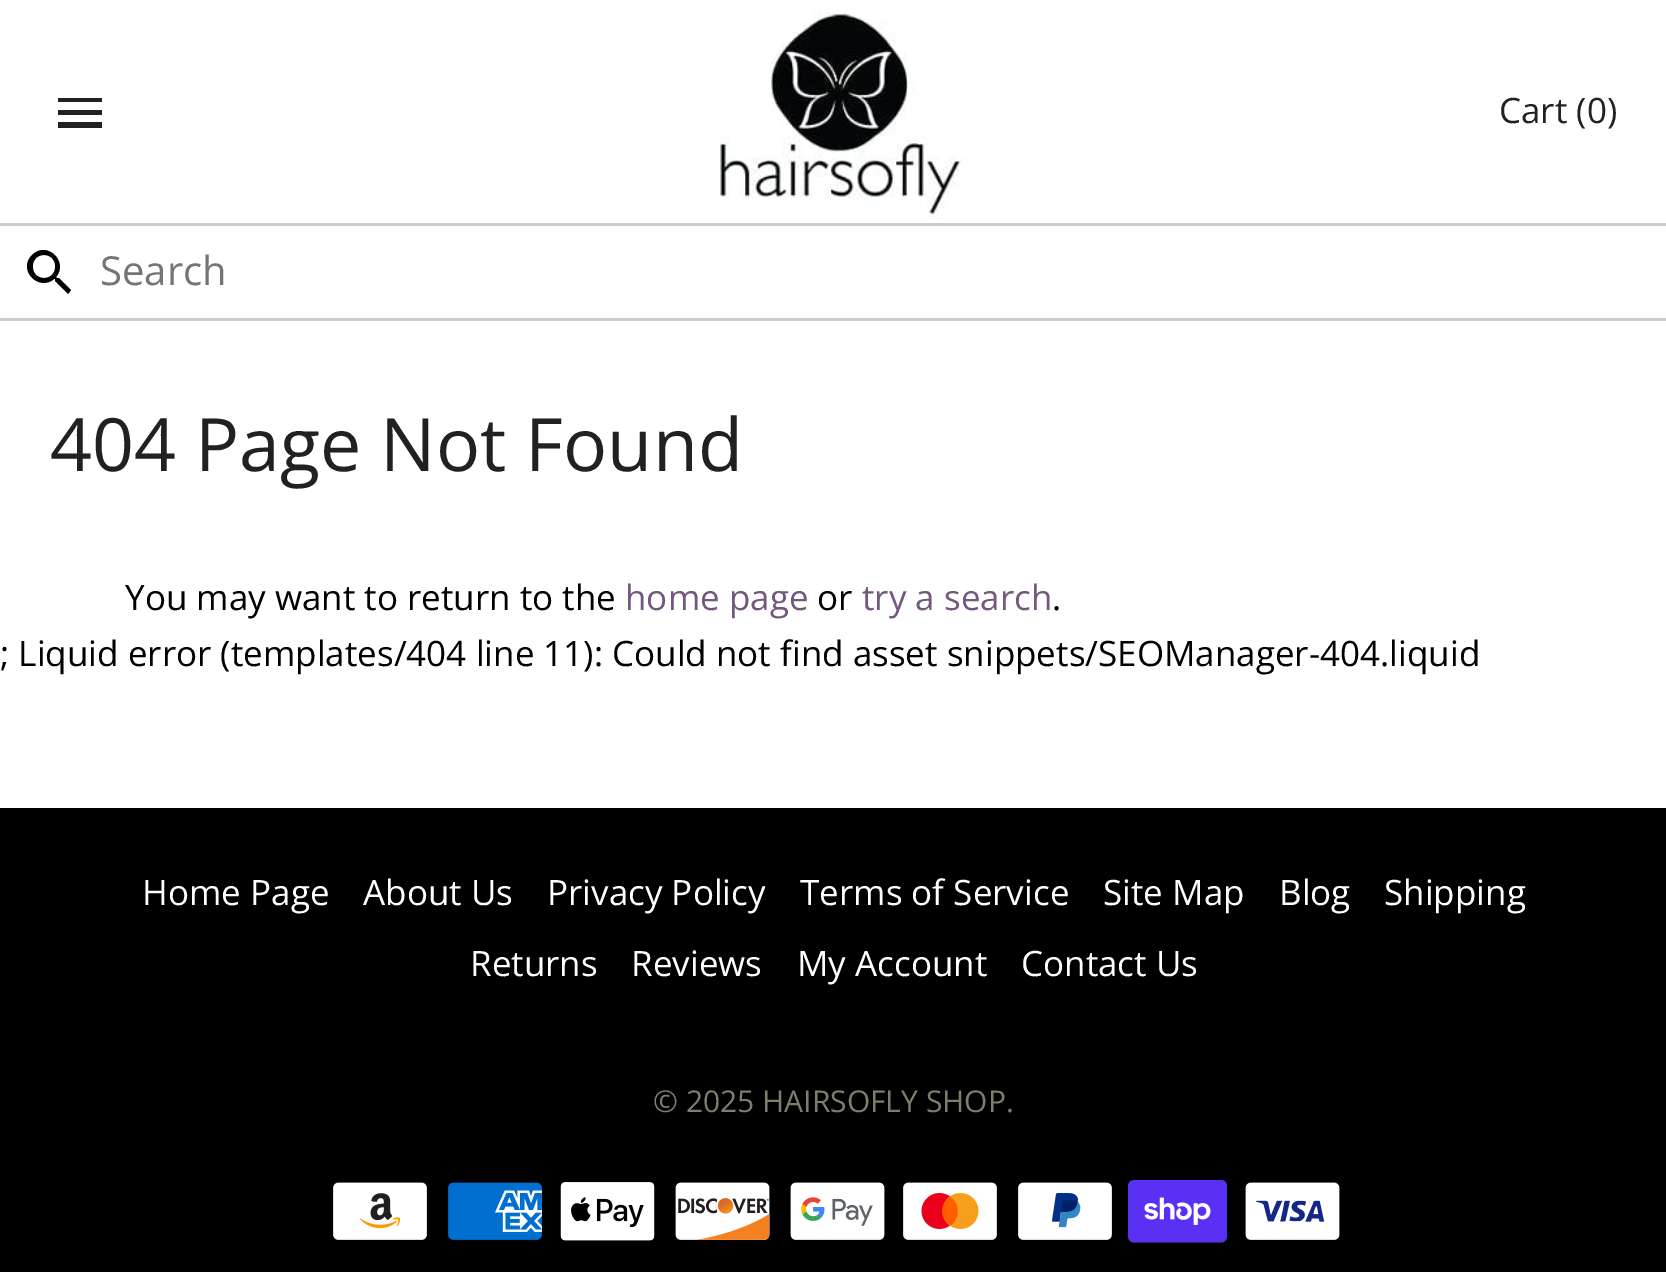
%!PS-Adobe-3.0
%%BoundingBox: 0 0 1666 1272
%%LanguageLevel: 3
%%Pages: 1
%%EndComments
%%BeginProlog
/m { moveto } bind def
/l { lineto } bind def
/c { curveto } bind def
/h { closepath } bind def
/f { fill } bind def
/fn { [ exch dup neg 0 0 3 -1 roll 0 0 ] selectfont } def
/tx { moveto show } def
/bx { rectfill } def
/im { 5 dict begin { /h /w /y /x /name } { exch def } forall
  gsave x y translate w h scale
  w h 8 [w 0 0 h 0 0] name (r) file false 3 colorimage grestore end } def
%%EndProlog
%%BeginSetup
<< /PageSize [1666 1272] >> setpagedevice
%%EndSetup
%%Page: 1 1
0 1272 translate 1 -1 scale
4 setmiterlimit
1 setgray
0 0 1666 1272 bx
0.129 setgray
58 128 m 102 128 l 102 122 l 58 122 l h 58 115 m 102 115 l 102 110 l 58 110 l h 58 98 m 58 102 l 102 102 l 102 98 l h f
(image0.raw) 719 10 250 209 im
/OpenSans-Regular 35 fn
(Cart \(0\)) 1499 123 tx
0 setgray
59 278 m 57 278 l 56 277 l 69 262 47 240 32 255 c 17 270 39 292 54 279 c 55 279 l 55 281 l 68 294 l 71 290 l h 44 278 m 29 278 29 255 44 255 c 59 255 59 278 44 278 c h f
0.8 setgray
0 223 1666 3 bx
0 318 1666 3 bx
/OpenSans-Regular 40 fn
0.459 setgray
(Search) 100 285 tx
/OpenSans-Regular 73.5 fn
0.129 setgray
(404 Page Not Found) 50 471 tx
/OpenSans-Regular 35 fn
0 setgray
(You may want to return to the) 125 610 tx
0.451 0.345 0.486 setrgbcolor
(home page) 625 610 tx
0 setgray
(or) 817 610 tx
0.451 0.345 0.486 setrgbcolor
(try a search) 862 610 tx
0 setgray
(.) 1052 610 tx
(; Liquid error \(templates/404 line 11\): Could not find asset snippets/SEOManager-404.liquid) 0 666 tx
0 808 1666 464 bx
1 setgray
(Home Page) 142 905 tx
(About Us) 363 905 tx
(Privacy Policy) 547 905 tx
(Terms of Service) 800 905 tx
(Site Map) 1103 905 tx
(Blog) 1279 905 tx
(Shipping) 1384 905 tx
(Returns) 470 976 tx
(Reviews) 631 976 tx
(My Account) 797 976 tx
(Contact Us) 1021 976 tx
/OpenSans-Regular 30 fn
0.498 0.49 0.424 setrgbcolor
(© 2025 HAIRSOFLY SHOP.) 653 1112 tx
(image1.raw) 333 1182 94 58 im
(image2.raw) 448 1182 94 58 im
(image3.raw) 560 1182 95 59 im
(image4.raw) 675 1182 95 58 im
(image5.raw) 790 1182 95 58 im
(image6.raw) 903 1182 94 58 im
(image7.raw) 1018 1182 94 58 im
(image8.raw) 1128 1180 99 63 im
(image9.raw) 1245 1182 95 58 im
showpage
%%EOF
